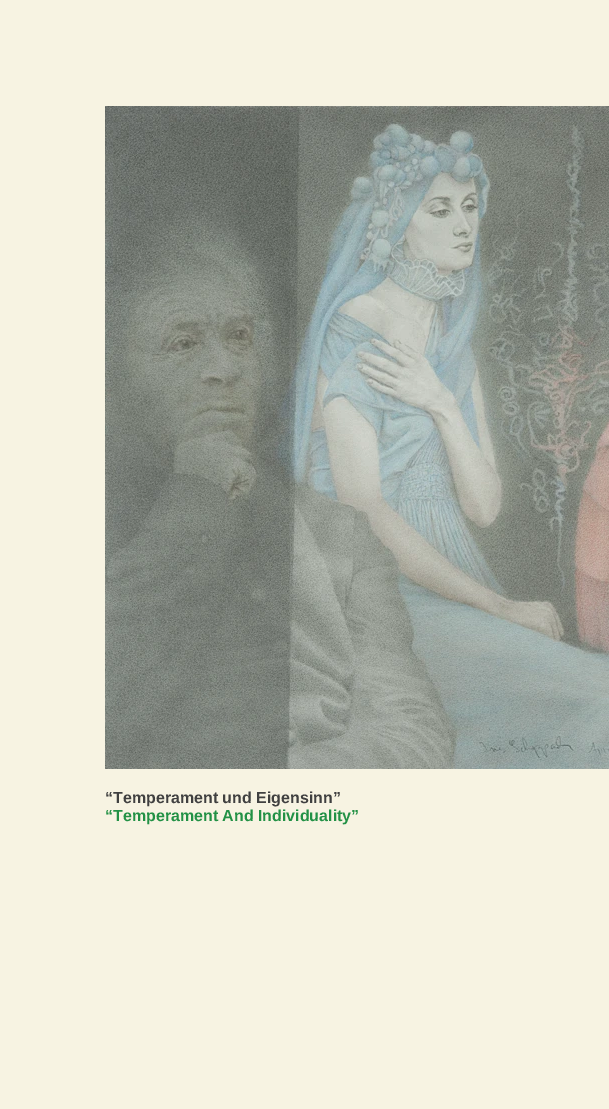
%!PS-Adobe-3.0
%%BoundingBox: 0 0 609 1109
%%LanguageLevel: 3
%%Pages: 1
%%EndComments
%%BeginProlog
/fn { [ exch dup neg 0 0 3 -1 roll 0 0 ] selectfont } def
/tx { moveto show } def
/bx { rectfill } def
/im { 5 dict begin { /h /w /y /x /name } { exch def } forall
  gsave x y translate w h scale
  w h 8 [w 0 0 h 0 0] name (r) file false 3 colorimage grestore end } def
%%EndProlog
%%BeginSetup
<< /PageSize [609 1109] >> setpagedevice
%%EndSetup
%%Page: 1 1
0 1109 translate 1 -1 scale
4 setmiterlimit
0.969 0.953 0.886 setrgbcolor
0 0 609 1109 bx
(image0.raw) 105 106 504 663 im
/LiberationSans-Bold 16 fn
0.251 setgray
(“Temperament und Eigensinn”) 105 803 tx
0.133 0.569 0.271 setrgbcolor
(“Temperament And Individuality”) 105 821 tx
showpage
%%EOF
